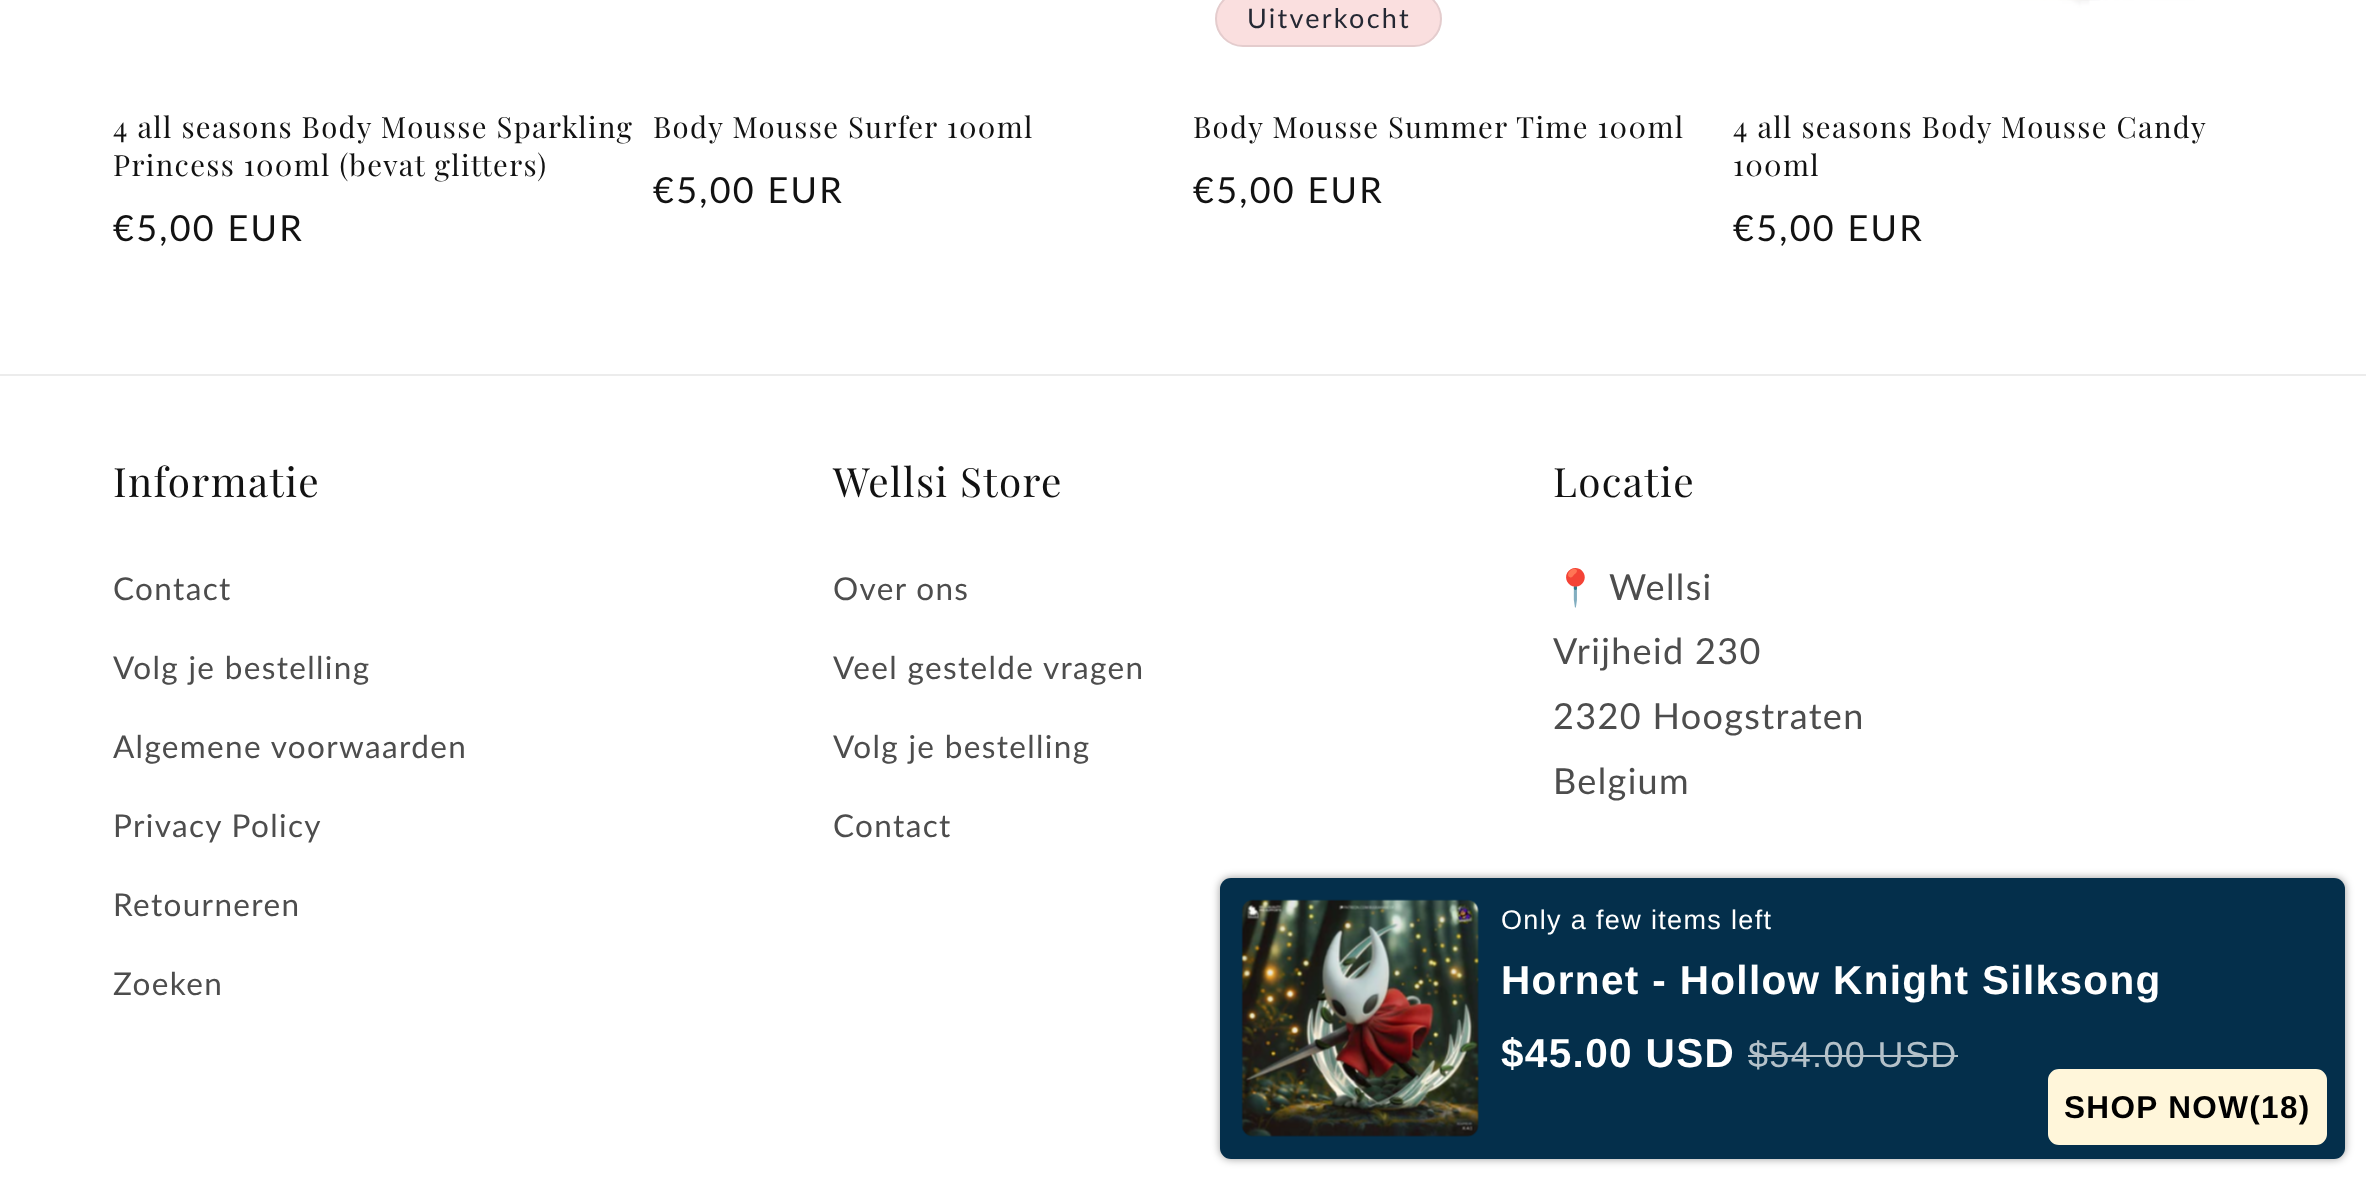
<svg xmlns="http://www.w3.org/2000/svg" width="2366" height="1180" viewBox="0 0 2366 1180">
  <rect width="100%" height="100%" fill="#fff"/>
  <rect x="1215" y="-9" width="227" height="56" rx="28" fill="#fadfdf"/>
  <rect x="1216" y="-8" width="225" height="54" rx="27" fill="none" stroke="#2428331a" stroke-width="2"/>
  <image x="1733" y="0" width="522" height="70" href="img/1.png"/>
  <path d="M0 374h2366v2H0z" fill="#ececec"/>
  <rect x="1220" y="878" width="1125" height="281" rx="11" fill="#00000066" filter="blur(4.5px)"/>
  <rect x="1220" y="878" width="1125" height="281" rx="11" fill="#042f4b"/>
  <image x="1241" y="899" width="238" height="238" href="img/2.png"/>
  <path d="M1748 1055h210v2H1748z" fill="#b4c1c9"/>
  <rect x="2049" y="1070" width="277" height="74" rx="10" fill="#fff6da" stroke="#fff6da" stroke-width="2"/>
  <g font-family="Playfair Display" font-size="29.25" letter-spacing="1.35" fill="#121212">
    <text x="113" y="138">4 all seasons Body Mousse Sparkling</text>
    <text x="113" y="176">Princess 100ml (bevat glitters)</text>
  </g>
  <text x="113" y="241" font-family="Lato" font-size="36" letter-spacing="2.25" fill="#121212">€5,00 EUR</text>
  <text x="653" y="138" font-family="Playfair Display" font-size="29.25" letter-spacing="1.35" fill="#121212">Body Mousse Surfer 100ml</text>
  <text x="653" y="203" font-family="Lato" font-size="36" letter-spacing="2.25" fill="#121212">€5,00 EUR</text>
  <text x="1247" y="28" font-family="Lato" font-size="27" letter-spacing="2.25" fill="#242833">Uitverkocht</text>
  <text x="1193" y="138" font-family="Playfair Display" font-size="29.25" letter-spacing="1.35" fill="#121212">Body Mousse Summer Time 100ml</text>
  <text x="1193" y="203" font-family="Lato" font-size="36" letter-spacing="2.25" fill="#121212">€5,00 EUR</text>
  <g font-family="Playfair Display" font-size="29.25" letter-spacing="1.35" fill="#121212">
    <text x="1733" y="138">4 all seasons Body Mousse Candy</text>
    <text x="1733" y="176">100ml</text>
  </g>
  <text x="1733" y="241" font-family="Lato" font-size="36" letter-spacing="2.25" fill="#121212">€5,00 EUR</text>
  <text x="113" y="497" font-family="Playfair Display" font-size="40.5" letter-spacing="1.35" fill="#121212">Informatie</text>
  <g font-family="Lato" font-size="31.5" letter-spacing="1.35" fill="#4d4d4d">
    <text x="113" y="600">Contact</text>
    <text x="113" y="679">Volg je bestelling</text>
    <text x="113" y="758">Algemene voorwaarden</text>
    <text x="113" y="837">Privacy Policy</text>
    <text x="113" y="916">Retourneren</text>
    <text x="113" y="995">Zoeken</text>
  </g>
  <text x="833" y="497" font-family="Playfair Display" font-size="40.5" letter-spacing="1.35" fill="#121212">Wellsi Store</text>
  <g font-family="Lato" font-size="31.5" letter-spacing="1.35" fill="#4d4d4d">
    <text x="833" y="600">Over ons</text>
    <text x="833" y="679">Veel gestelde vragen</text>
    <text x="833" y="758">Volg je bestelling</text>
    <text x="833" y="837">Contact</text>
  </g>
  <text x="1553" y="497" font-family="Playfair Display" font-size="40.5" letter-spacing="1.35" fill="#121212">Locatie</text>
  <text x="1553" y="600" font-family="Noto Color Emoji" font-size="36" letter-spacing="1.35" fill="#4d4d4d">📍</text>
  <g font-family="Lato" font-size="36" letter-spacing="1.35" fill="#4d4d4d">
    <text x="1609" y="600">Wellsi</text>
    <text x="1553" y="664">Vrijheid 230</text>
    <text x="1553" y="729">2320 Hoogstraten</text>
    <text x="1553" y="794">Belgium</text>
  </g>
  <text x="1501" y="929" font-family="Liberation Sans" font-size="27" letter-spacing="1.35" fill="#fff">Only a few items left</text>
  <g font-family="Liberation Sans" font-size="40.5" font-weight="bold" letter-spacing="1.35" fill="#fff">
    <text x="1501" y="994">Hornet - Hollow Knight Silksong</text>
    <text x="1501" y="1067">$45.00 USD</text>
  </g>
  <text x="1748" y="1067" font-family="Liberation Sans" font-size="36" letter-spacing="1.35" fill="#b4c1c9">$54.00 USD</text>
  <text x="2064" y="1118" font-family="Liberation Sans" font-size="31.5" font-weight="bold" letter-spacing="1.35" fill="#000">SHOP NOW(18)</text>
</svg>
